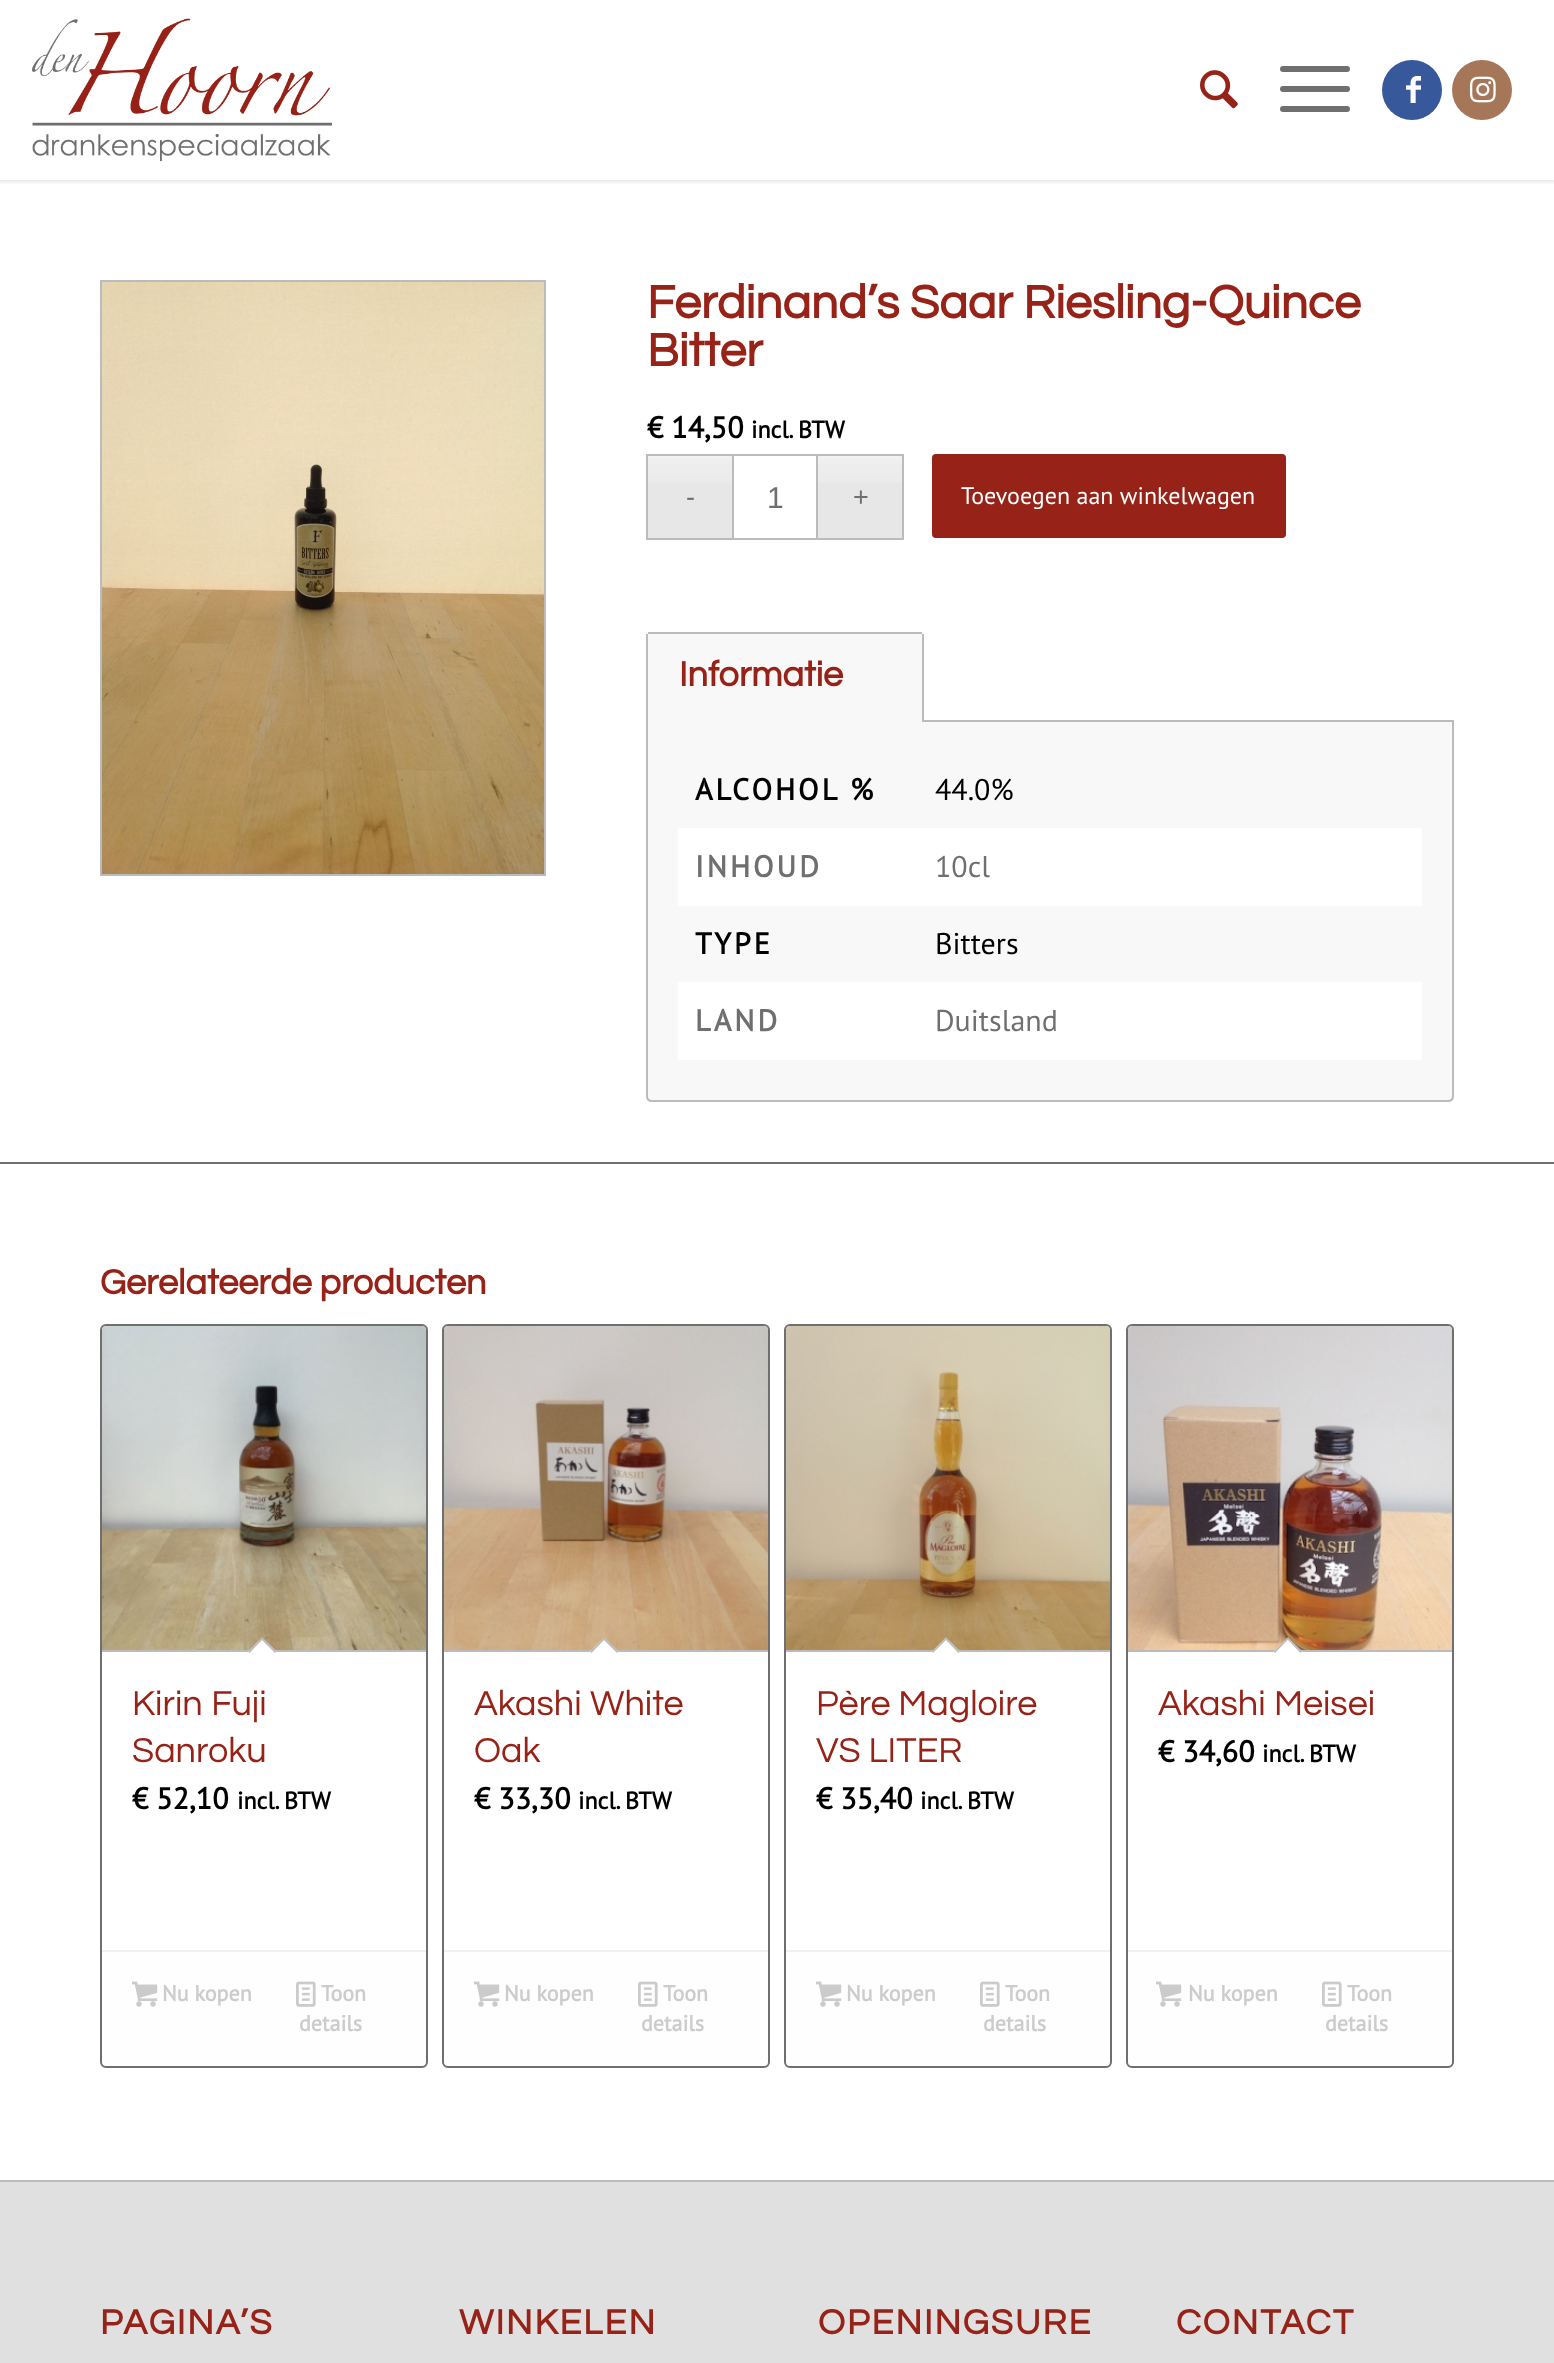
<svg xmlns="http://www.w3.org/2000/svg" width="1554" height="2363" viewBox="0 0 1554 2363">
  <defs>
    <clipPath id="clip1"><path d="M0 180h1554v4H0z"/></clipPath>
  </defs>
  <rect width="100%" height="100%" fill="#fff"/>
  <g clip-path="url(#clip1)">
    <path d="M-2 -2h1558v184H-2z" fill="#0000001a" filter="blur(2px)"/>
  </g>
  <image x="32" y="18" width="300" height="144" href="img/1.png"/>
  <image x="1200" y="70" width="38" height="39" href="img/2.png"/>
  <rect x="1280" y="86" width="70" height="6" rx="3" fill="#6e6f6e"/>
  <rect x="1280" y="66" width="70" height="6" rx="3" fill="#6e6f6e"/>
  <rect x="1280" y="106" width="70" height="6" rx="3" fill="#6e6f6e"/>
  <circle cx="1412" cy="90" r="30" fill="#37589b"/>
  <image x="1406" y="76" width="15" height="27" href="img/3.png"/>
  <circle cx="1482" cy="90" r="30" fill="#a67658"/>
  <image x="1470" y="76" width="26" height="27" href="img/4.png"/>
  <path d="M101 281h444v594H101z" fill="none" stroke="#babbbd" stroke-width="2"/>
  <image x="102" y="282" width="442" height="592" href="img/5.png"/>
  <path d="M648 456h84v82H648z" fill="#e7e7e7"/>
  <image x="648" y="456" width="84" height="27" href="img/6.png"/>
  <path d="M818 456h84v82H818z" fill="#e7e7e7"/>
  <image x="818" y="456" width="84" height="27" href="img/6.png"/>
  <path d="M646 454h86v2H646z" fill="#babbbd"/>
  <path d="M646 538h86v2H646z" fill="#babbbd"/>
  <path d="M646 454h2v86H646z" fill="#babbbd"/>
  <path d="M733 455h84v84H733z" fill="none" stroke="#babbbd" stroke-width="2"/>
  <path d="M818 454h86v2H818z" fill="#babbbd"/>
  <path d="M902 454h2v86H902z" fill="#babbbd"/>
  <path d="M818 538h86v2H818z" fill="#babbbd"/>
  <rect x="932" y="454" width="354" height="84" rx="4" fill="#972217"/>
  <path d="M647 721H1453V1096C1453 1099 1451 1101 1448 1101H652C649 1101 647 1099 647 1096Z" fill="#f8f8f8" stroke="#babbbd" stroke-width="2"/>
  <path d="M646 632h278v90H646z" fill="#f8f8f8"/>
  <path d="M648 632h274v2H648z" fill="#babbbd"/>
  <path d="M922 634h2v88H922z" fill="#babbbd"/>
  <path d="M646 634h2v88H646z" fill="#babbbd"/>
  <path d="M678 828h744v78H678z" fill="#fff"/>
  <path d="M678 982h744v78H678z" fill="#fff"/>
  <path d="M0 1162h1554v2H0z" fill="#6e6f6e"/>
  <rect x="101" y="1325" width="326" height="742" rx="5" fill="none" stroke="#6e6f6e" stroke-width="2"/>
  <image x="102" y="1326" width="324" height="324" href="img/7.png"/>
  <path d="M102 1650h324v2H102z" fill="#babbbd"/>
  <path d="M262 1637.5L276.5 1651.5L262 1665.5L248 1651.5Z" fill="#fff"/>
  <path d="M262 1637.5L276.5 1651.5L275 1653L260.5 1638.5Z" fill="#babbbd"/>
  <path d="M262 1637.5L263.5 1638.5L249.5 1653L248 1651.5Z" fill="#babbbd"/>
  <path d="M102 1950H426V2062C426 2064 424 2066 422 2066H106C104 2066 102 2064 102 2062Z" fill="#f8f8f833"/>
  <path d="M102 1950h324v2H102z" fill="#f1f1f2"/>
  <image x="132" y="1981" width="26" height="26" href="img/8.png"/>
  <image x="296" y="1981" width="20" height="26" href="img/9.png"/>
  <rect x="443" y="1325" width="326" height="742" rx="5" fill="none" stroke="#6e6f6e" stroke-width="2"/>
  <image x="444" y="1326" width="324" height="324" href="img/10.png"/>
  <path d="M444 1650h324v2H444z" fill="#babbbd"/>
  <path d="M604 1637.5L618 1651.5L604 1665.5L590 1651.5Z" fill="#fff"/>
  <path d="M604 1637.5L618 1651.5L617 1653L602.5 1638.5Z" fill="#babbbd"/>
  <path d="M604 1637.5L605.5 1638.5L591.5 1653L590 1651.5Z" fill="#babbbd"/>
  <path d="M444 1950H768V2062C768 2064 766 2066 764 2066H448C446 2066 444 2064 444 2062Z" fill="#f8f8f833"/>
  <path d="M444 1950h324v2H444z" fill="#f1f1f2"/>
  <image x="474" y="1981" width="26" height="26" href="img/8.png"/>
  <image x="638" y="1981" width="20" height="26" href="img/9.png"/>
  <rect x="785" y="1325" width="326" height="742" rx="5" fill="none" stroke="#6e6f6e" stroke-width="2"/>
  <image x="786" y="1326" width="324" height="324" href="img/11.png"/>
  <path d="M786 1650h324v2H786z" fill="#babbbd"/>
  <path d="M946 1637.5L960 1651.5L946 1665.5L932 1651.5Z" fill="#fff"/>
  <path d="M946 1637.5L960 1651.5L958.5 1653L944.5 1638.5Z" fill="#babbbd"/>
  <path d="M946 1637.5L947.5 1638.5L933 1653L932 1651.5Z" fill="#babbbd"/>
  <path d="M786 1950H1110V2062C1110 2064 1108 2066 1106 2066H790C788 2066 786 2064 786 2062Z" fill="#f8f8f833"/>
  <path d="M786 1950h324v2H786z" fill="#f1f1f2"/>
  <image x="816" y="1981" width="26" height="26" href="img/8.png"/>
  <image x="980" y="1981" width="20" height="26" href="img/9.png"/>
  <rect x="1127" y="1325" width="326" height="742" rx="5" fill="none" stroke="#6e6f6e" stroke-width="2"/>
  <image x="1128" y="1326" width="324" height="324" href="img/12.png"/>
  <path d="M1128 1650h324v2H1128z" fill="#babbbd"/>
  <path d="M1288 1637.5L1302 1651.5L1288 1665.5L1273.5 1651.5Z" fill="#fff"/>
  <path d="M1288 1637.5L1302 1651.5L1300.5 1653L1286.5 1638.5Z" fill="#babbbd"/>
  <path d="M1288 1637.5L1289 1638.5L1275 1653L1273.5 1651.5Z" fill="#babbbd"/>
  <path d="M1128 1950H1452V2062C1452 2064 1450 2066 1448 2066H1132C1130 2066 1128 2064 1128 2062Z" fill="#f8f8f833"/>
  <path d="M1128 1950h324v2H1128z" fill="#f1f1f2"/>
  <image x="1156" y="1981" width="26" height="26" href="img/8.png"/>
  <image x="1322" y="1981" width="20" height="26" href="img/9.png"/>
  <path d="M0 2182h1554v181H0z" fill="#e0e0e0"/>
  <path d="M0 2180h1554v2H0z" fill="#babbbd"/>
  <g font-family="Questrial" font-size="48" font-weight="bold" fill="#972217">
    <text x="647" y="318">Ferdinand’s Saar Riesling-Quince</text>
    <text x="647" y="366">Bitter</text>
  </g>
  <text x="647" y="438" font-family="PT Sans" font-size="30" font-weight="bold" fill="#000">€ 14,50</text>
  <text x="751" y="438" font-family="PT Sans" font-size="24" font-weight="bold" fill="#000">incl. BTW</text>
  <text x="686" y="506" font-family="Liberation Sans" font-size="27" fill="#6e6f6e">-</text>
  <text x="767" y="508" font-family="Liberation Sans" font-size="30" fill="#6e6f6e">1</text>
  <text x="853" y="506" font-family="Liberation Sans" font-size="27" fill="#6e6f6e">+</text>
  <text x="961" y="504" font-family="PT Sans" font-size="24" fill="#fff">Toevoegen aan winkelwagen</text>
  <text x="679" y="686" font-family="Questrial" font-size="36" font-weight="bold" fill="#972217">Informatie</text>
  <text x="695" y="800" font-family="PT Sans" font-size="30" font-weight="bold" letter-spacing="3" fill="#000">ALCOHOL %</text>
  <text x="935" y="800" font-family="PT Sans" font-size="30" fill="#000">44.0%</text>
  <text x="695" y="877" font-family="PT Sans" font-size="30" font-weight="bold" letter-spacing="3" fill="#6e6f6e">INHOUD</text>
  <text x="935" y="877" font-family="PT Sans" font-size="30" fill="#6e6f6e">10cl</text>
  <text x="695" y="954" font-family="PT Sans" font-size="30" font-weight="bold" letter-spacing="3" fill="#000">TYPE</text>
  <text x="935" y="954" font-family="PT Sans" font-size="30" fill="#000">Bitters</text>
  <text x="695" y="1031" font-family="PT Sans" font-size="30" font-weight="bold" letter-spacing="3" fill="#6e6f6e">LAND</text>
  <text x="935" y="1031" font-family="PT Sans" font-size="30" fill="#6e6f6e">Duitsland</text>
  <text x="100" y="1294" font-family="Questrial" font-size="36" font-weight="bold" fill="#972217">Gerelateerde producten</text>
  <g font-family="Questrial" font-size="36" fill="#972217">
    <text x="132" y="1715" word-spacing="1">Kirin Fuji</text>
    <text x="132" y="1762">Sanroku</text>
  </g>
  <text x="132" y="1809" font-family="PT Sans" font-size="30" font-weight="bold" fill="#000">€ 52,10</text>
  <text x="237" y="1809" font-family="PT Sans" font-size="24" font-weight="bold" fill="#000">incl. BTW</text>
  <g font-family="PT Sans" font-size="22" font-weight="bold" fill="#ccc">
    <text x="162" y="2001">Nu kopen</text>
    <text x="321" y="2001">Toon</text>
    <text x="299" y="2031">details</text>
  </g>
  <g font-family="Questrial" font-size="36" fill="#972217">
    <text x="474" y="1715">Akashi White</text>
    <text x="474" y="1762">Oak</text>
  </g>
  <text x="474" y="1809" font-family="PT Sans" font-size="30" font-weight="bold" fill="#000">€ 33,30</text>
  <text x="578" y="1809" font-family="PT Sans" font-size="24" font-weight="bold" fill="#000">incl. BTW</text>
  <g font-family="PT Sans" font-size="22" font-weight="bold" fill="#ccc">
    <text x="504" y="2001">Nu kopen</text>
    <text x="663" y="2001">Toon</text>
    <text x="641" y="2031">details</text>
  </g>
  <g font-family="Questrial" font-size="36" fill="#972217">
    <text x="816" y="1715">Père Magloire</text>
    <text x="816" y="1762">VS LITER</text>
  </g>
  <text x="816" y="1809" font-family="PT Sans" font-size="30" font-weight="bold" fill="#000">€ 35,40</text>
  <text x="920" y="1809" font-family="PT Sans" font-size="24" font-weight="bold" fill="#000">incl. BTW</text>
  <g font-family="PT Sans" font-size="22" font-weight="bold" fill="#ccc">
    <text x="846" y="2001">Nu kopen</text>
    <text x="1005" y="2001">Toon</text>
    <text x="983" y="2031">details</text>
  </g>
  <text x="1158" y="1715" font-family="Questrial" font-size="36" fill="#972217">Akashi Meisei</text>
  <text x="1158" y="1762" font-family="PT Sans" font-size="30" font-weight="bold" fill="#000">€ 34,60</text>
  <text x="1262" y="1762" font-family="PT Sans" font-size="24" font-weight="bold" fill="#000">incl. BTW</text>
  <g font-family="PT Sans" font-size="22" font-weight="bold" fill="#ccc">
    <text x="1188" y="2001">Nu kopen</text>
    <text x="1347" y="2001">Toon</text>
    <text x="1325" y="2031">details</text>
  </g>
  <g font-family="Questrial" font-size="36" font-weight="bold" letter-spacing="2" fill="#972217">
    <text x="100" y="2334">PAGINA’S</text>
    <text x="459" y="2334">WINKELEN</text>
    <text x="818" y="2334">OPENINGSURE</text>
    <text x="1176" y="2334">CONTACT</text>
  </g>
</svg>
